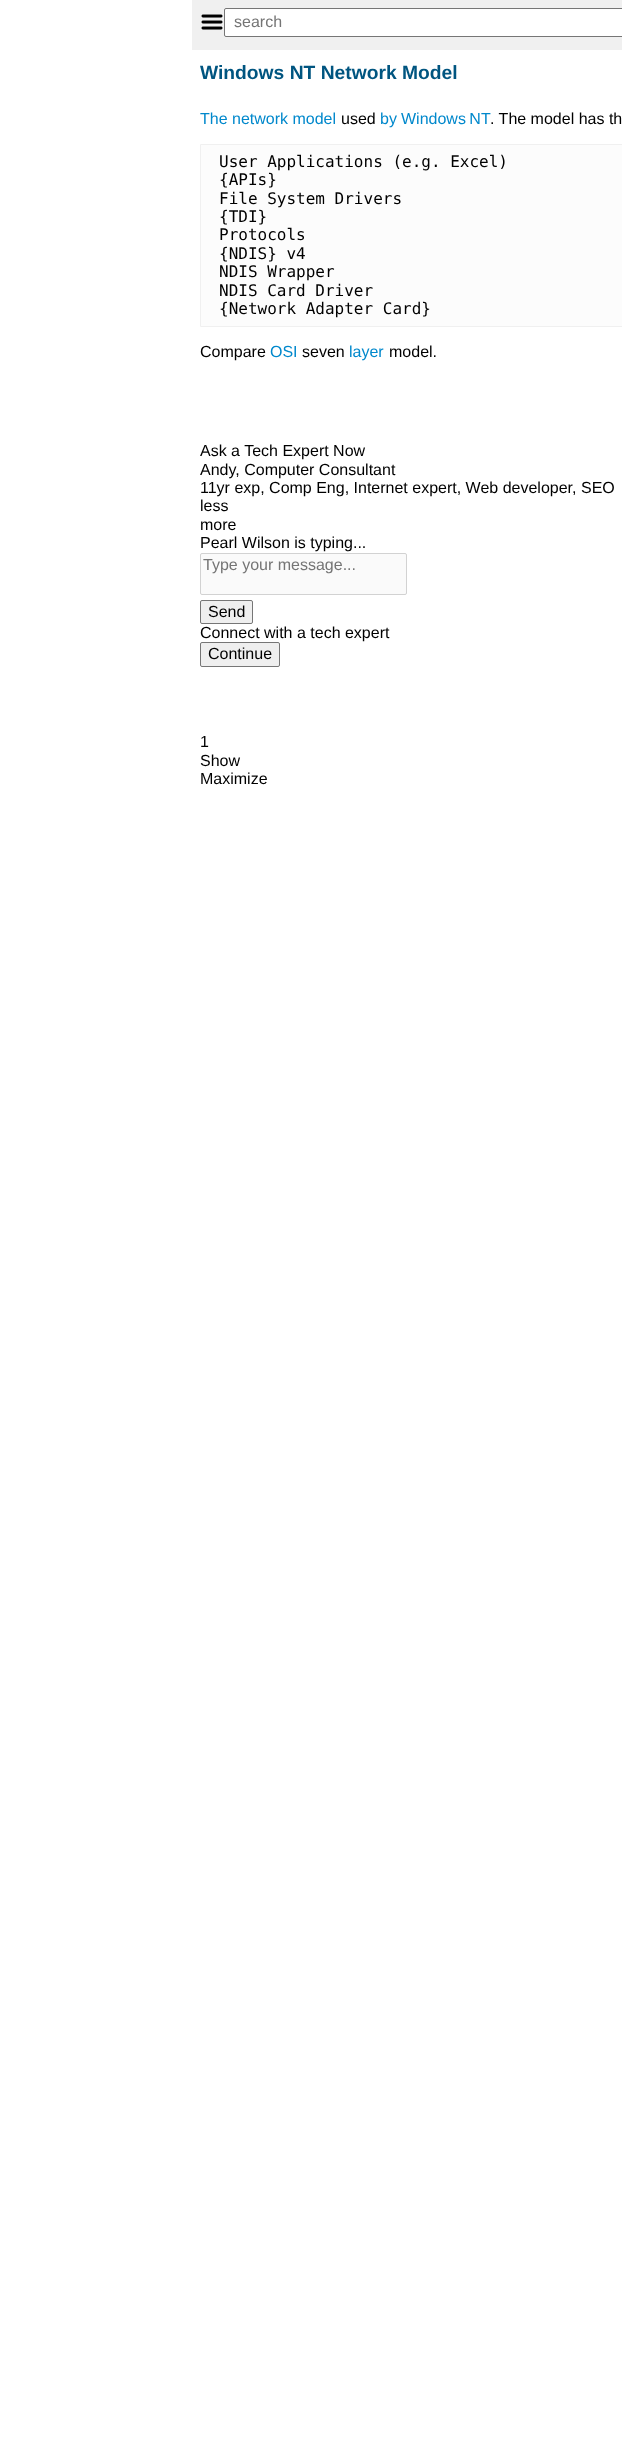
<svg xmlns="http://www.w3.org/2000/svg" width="622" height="2443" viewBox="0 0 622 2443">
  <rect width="100%" height="100%" fill="#fff"/>
  <path d="M192 0h430v50H192z" fill="#f0f0f0"/>
  <image x="201" y="14" width="22" height="16" href="img/1.png"/>
  <rect x="224.5" y="8.5" width="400" height="28" rx="1.5" fill="#fff" stroke="#767676"/>
  <path d="M200.5 144.5h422v182H200.5z" fill="#fcfcfc" stroke="#f0f0f0"/>
  <rect x="200.5" y="553.5" width="206" height="41" rx="1.5" fill="#fafafa" stroke="#d2d2d2"/>
  <rect x="200.5" y="600.5" width="52" height="23" rx="1.5" fill="#efefef" stroke="#767676"/>
  <rect x="200.5" y="642.5" width="79" height="24" rx="1.5" fill="#efefef" stroke="#767676"/>
  <text x="234" y="27" font-family="Liberation Sans" font-size="16" fill="#757575">search</text>
  <text x="200" y="79" font-family="Liberation Sans" font-size="19.25" font-weight="bold" fill="#005580">Windows NT Network Model</text>
  <text x="200" y="124" font-family="Liberation Sans" font-size="16" fill="#08c">The network model</text>
  <text x="341" y="124" font-family="Liberation Sans" font-size="16" fill="#000">used</text>
  <g font-family="Liberation Sans" font-size="16" fill="#08c">
    <text x="380" y="124">by</text>
    <text x="401" y="124" word-spacing="-1">Windows NT</text>
  </g>
  <text x="490" y="124" font-family="Liberation Sans" font-size="16" fill="#000">. The model has th</text>
  <g font-family="DejaVu Sans Mono" font-size="16" fill="#000">
    <text x="219" y="167">User Applications (e.g. Excel)</text>
    <text x="219" y="185">{APIs}</text>
    <text x="219" y="204">File System Drivers</text>
    <text x="219" y="222">{TDI}</text>
    <text x="219" y="240">Protocols</text>
    <text x="219" y="259">{NDIS} v4</text>
    <text x="219" y="277">NDIS Wrapper</text>
    <text x="219" y="296">NDIS Card Driver</text>
    <text x="219" y="314">{Network Adapter Card}</text>
  </g>
  <text x="200" y="357" font-family="Liberation Sans" font-size="16" fill="#000">Compare</text>
  <text x="270" y="357" font-family="Liberation Sans" font-size="16" fill="#08c">OSI</text>
  <text x="302" y="357" font-family="Liberation Sans" font-size="16" fill="#000">seven</text>
  <text x="349" y="357" font-family="Liberation Sans" font-size="16" fill="#08c">layer</text>
  <g font-family="Liberation Sans" font-size="16" fill="#000">
    <text x="389" y="357">model.</text>
    <text x="200" y="456">Ask a Tech Expert Now</text>
    <text x="200" y="475">Andy, Computer Consultant</text>
    <text x="200" y="493">11yr exp, Comp Eng, Internet expert, Web developer, SEO</text>
    <text x="200" y="511">less</text>
    <text x="200" y="530">more</text>
    <text x="200" y="548">Pearl Wilson is typing...</text>
  </g>
  <text x="203" y="570" font-family="Liberation Sans" font-size="16" fill="#757575">Type your message...</text>
  <g font-family="Liberation Sans" font-size="16" fill="#000">
    <text x="208" y="617">Send</text>
    <text x="200" y="638">Connect with a tech expert</text>
    <text x="208" y="659">Continue</text>
    <text x="200" y="747">1</text>
    <text x="200" y="766">Show</text>
    <text x="200" y="784">Maximize</text>
  </g>
</svg>
